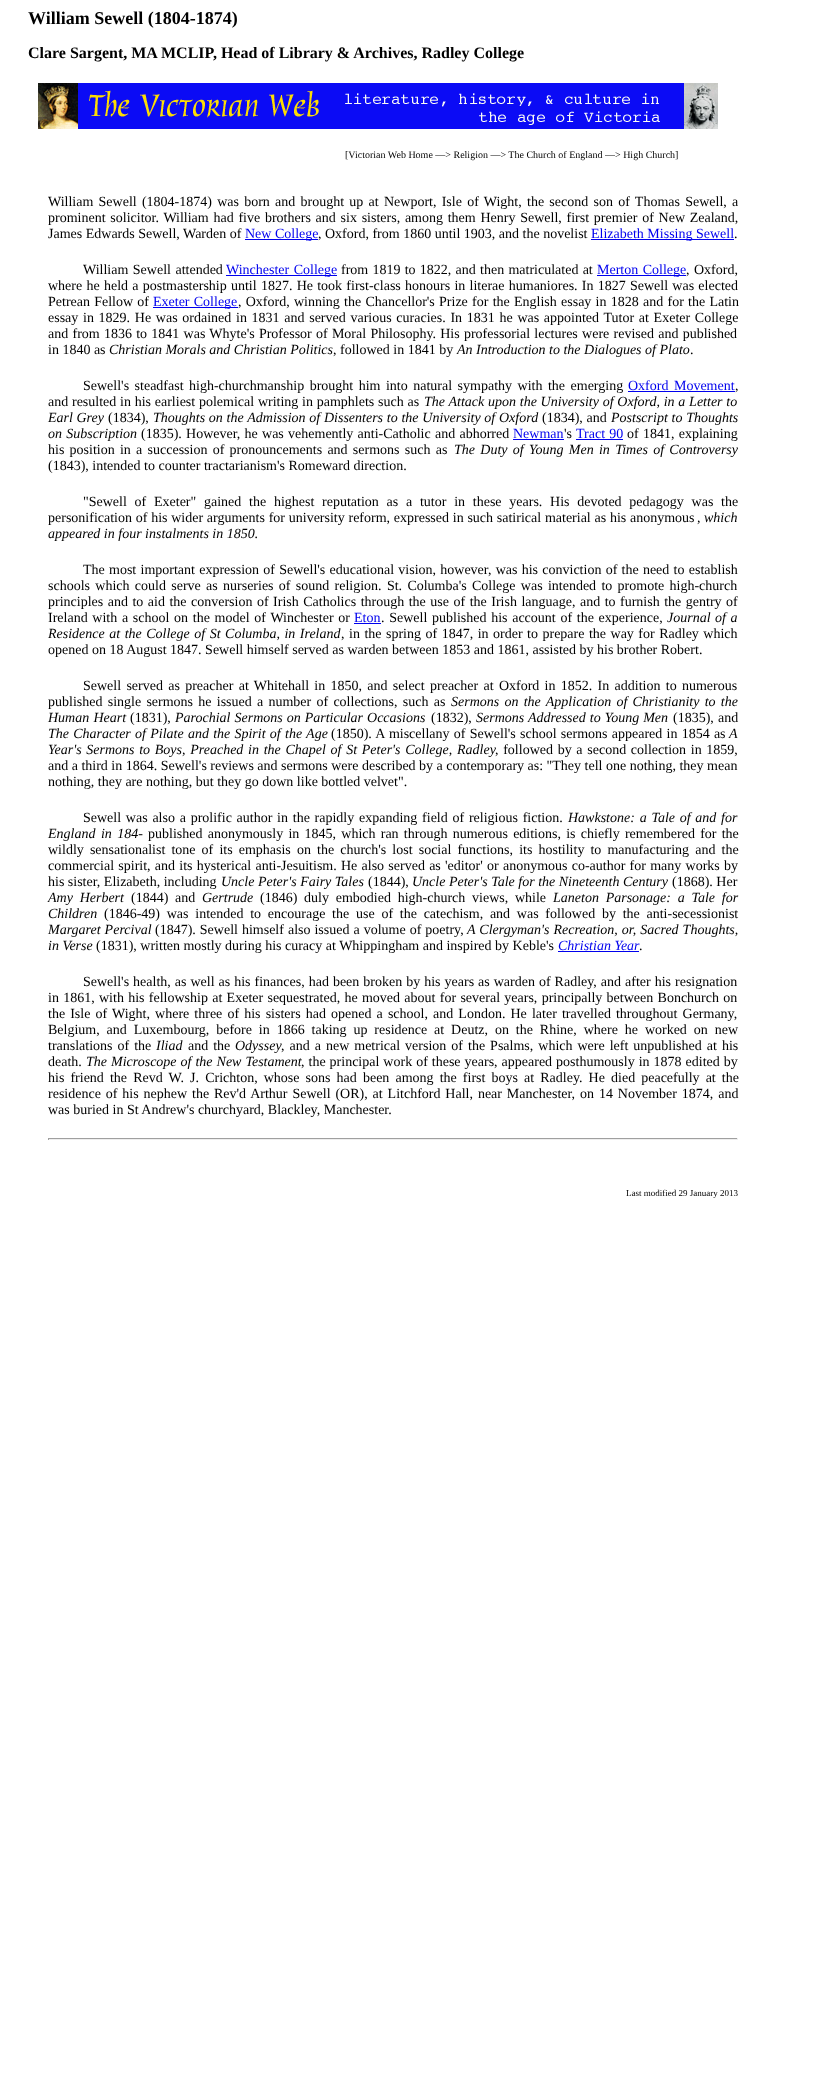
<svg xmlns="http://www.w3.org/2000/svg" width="819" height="2086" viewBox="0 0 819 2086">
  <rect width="100%" height="100%" fill="#fff"/>
  <image x="38" y="83" width="680" height="46" href="img/1.png"/>
  <path d="M245 239h73v1H245z" fill="#00e"/>
  <path d="M591 239h143v1H591z" fill="#00e"/>
  <path d="M226 275h111v1H226z" fill="#00e"/>
  <path d="M597 275h89v1H597z" fill="#00e"/>
  <path d="M153 307h85v1H153z" fill="#00e"/>
  <path d="M628 391h107v1H628z" fill="#00e"/>
  <path d="M513 439h51v1H513z" fill="#00e"/>
  <path d="M576 439h47v1H576z" fill="#00e"/>
  <path d="M354 623h27v1H354z" fill="#00e"/>
  <path d="M558 951h81v1H558z" fill="#00e"/>
  <path d="M48 1138h690v1H48z" fill="#9f9f9f"/>
  <path d="M737 1138h1v2H737z" fill="#eee"/>
  <path d="M48 1139h690v1H48z" fill="#eee"/>
  <path d="M48 1138h1v2H48z" fill="#9f9f9f"/>
  <text x="28" y="24" font-family="Liberation Serif" font-size="18" font-weight="bold" fill="#000">William Sewell (1804-1874)</text>
  <text x="28" y="58" font-family="Liberation Serif" font-size="16" font-weight="bold" fill="#000">Clare Sargent, MA MCLIP, Head of Library &amp; Archives, Radley College</text>
  <text x="345" y="158" font-family="Liberation Serif" font-size="10" fill="#000">[Victorian Web Home —&gt; Religion —&gt; The Church of England —&gt; High Church]</text>
  <g font-family="Liberation Serif" font-size="14" fill="#000">
    <text x="48" y="206" word-spacing="1.75">William Sewell (1804-1874) was born and brought up at Newport, Isle of Wight, the second son of Thomas Sewell, a</text>
    <text x="48" y="222" word-spacing="1.25">prominent solicitor. William had five brothers and six sisters, among them Henry Sewell, first premier of New Zealand,</text>
    <text x="48" y="238">James Edwards Sewell, Warden of</text>
  </g>
  <text x="245" y="238" font-family="Liberation Serif" font-size="14" fill="#00e">New College</text>
  <text x="318" y="238" font-family="Liberation Serif" font-size="14" fill="#000">, Oxford, from 1860 until 1903, and the novelist</text>
  <text x="591" y="238" font-family="Liberation Serif" font-size="14" fill="#00e">Elizabeth Missing Sewell</text>
  <g font-family="Liberation Serif" font-size="14" fill="#000">
    <text x="734" y="238">.</text>
    <text x="83" y="274" word-spacing="1">William Sewell attended</text>
  </g>
  <text x="226" y="274" word-spacing="1" font-family="Liberation Serif" font-size="14" fill="#00e">Winchester College</text>
  <text x="341" y="274" word-spacing="0.75" font-family="Liberation Serif" font-size="14" fill="#000">from 1819 to 1822, and then matriculated at</text>
  <text x="597" y="274" word-spacing="1" font-family="Liberation Serif" font-size="14" fill="#00e">Merton College</text>
  <g font-family="Liberation Serif" font-size="14" fill="#000">
    <text x="686" y="274" word-spacing="1">, Oxford,</text>
    <text x="48" y="290" word-spacing="0.75">where he held a postmastership until 1827. He took first-class honours in literae humaniores. In 1827 Sewell was elected</text>
    <text x="48" y="306" word-spacing="0.75">Petrean Fellow of</text>
  </g>
  <text x="153" y="306" word-spacing="0.75" font-family="Liberation Serif" font-size="14" fill="#00e">Exeter College</text>
  <g font-family="Liberation Serif" font-size="14" fill="#000">
    <text x="238" y="306" word-spacing="0.75">, Oxford, winning the Chancellor's Prize for the English essay in 1828 and for the Latin</text>
    <text x="48" y="322" word-spacing="1.2">essay in 1829. He was ordained in 1831 and served various curacies. In 1831 he was appointed Tutor at Exeter College</text>
    <text x="48" y="338" word-spacing="0.75">and from 1836 to 1841 was Whyte's Professor of Moral Philosophy. His professorial lectures were revised and published</text>
    <text x="48" y="354">in 1840 as</text>
  </g>
  <text x="109" y="354" font-family="Liberation Serif" font-size="14" font-style="italic" fill="#000">Christian Morals and Christian Politics</text>
  <text x="333" y="354" font-family="Liberation Serif" font-size="14" fill="#000">, followed in 1841 by</text>
  <text x="457" y="354" font-family="Liberation Serif" font-size="14" font-style="italic" fill="#000">An Introduction to the Dialogues of Plato</text>
  <g font-family="Liberation Serif" font-size="14" fill="#000">
    <text x="690" y="354">.</text>
    <text x="83" y="390" word-spacing="2">Sewell's steadfast high-churchmanship brought him into natural sympathy with the emerging</text>
  </g>
  <text x="628" y="390" word-spacing="2" font-family="Liberation Serif" font-size="14" fill="#00e">Oxford Movement</text>
  <g font-family="Liberation Serif" font-size="14" fill="#000">
    <text x="735" y="390">,</text>
    <text x="48" y="406" word-spacing="0.25">and resulted in his earliest polemical writing in pamphlets such as</text>
  </g>
  <g font-family="Liberation Serif" font-size="14" font-style="italic" fill="#000">
    <text x="424" y="406" word-spacing="0.25">The Attack upon the University of Oxford, in a Letter to</text>
    <text x="48" y="422">Earl Grey</text>
  </g>
  <text x="108" y="422" font-family="Liberation Serif" font-size="14" fill="#000">(1834),</text>
  <text x="153" y="422" word-spacing="0.25" font-family="Liberation Serif" font-size="14" font-style="italic" fill="#000">Thoughts on the Admission of Dissenters to the University of Oxford</text>
  <text x="542" y="422" word-spacing="0.25" font-family="Liberation Serif" font-size="14" fill="#000">(1834), and</text>
  <g font-family="Liberation Serif" font-size="14" font-style="italic" fill="#000">
    <text x="611" y="422" word-spacing="0.25">Postscript to Thoughts</text>
    <text x="48" y="438" word-spacing="0.75">on Subscription</text>
  </g>
  <text x="141" y="438" word-spacing="0.75" font-family="Liberation Serif" font-size="14" fill="#000">(1835). However, he was vehemently anti-Catholic and abhorred</text>
  <text x="513" y="438" font-family="Liberation Serif" font-size="14" fill="#00e">Newman</text>
  <text x="564" y="438" font-family="Liberation Serif" font-size="14" fill="#000">'s</text>
  <text x="576" y="438" word-spacing="0.75" font-family="Liberation Serif" font-size="14" fill="#00e">Tract 90</text>
  <g font-family="Liberation Serif" font-size="14" fill="#000">
    <text x="627" y="438" word-spacing="0.75">of 1841, explaining</text>
    <text x="48" y="454" word-spacing="1.75">his position in a succession of pronouncements and sermons such as</text>
  </g>
  <text x="454" y="454" word-spacing="1.8" font-family="Liberation Serif" font-size="14" font-style="italic" fill="#000">The Duty of Young Men in Times of Controversy</text>
  <g font-family="Liberation Serif" font-size="14" fill="#000">
    <text x="48" y="470">(1843), intended to counter tractarianism's Romeward direction.</text>
    <text x="83" y="506" word-spacing="4.25">"Sewell of Exeter" gained the highest reputation as a tutor in these years. His devoted pedagogy was the</text>
    <text x="48" y="522" word-spacing="0.25">personification of his wider arguments for university reform, expressed in such satirical material as his anonymous</text>
  </g>
  <g font-family="Liberation Serif" font-size="14" font-style="italic" fill="#000">
    <text x="697" y="522">, which</text>
    <text x="48" y="538">appeared in four instalments in 1850.</text>
  </g>
  <g font-family="Liberation Serif" font-size="14" fill="#000">
    <text x="83" y="574" word-spacing="0.75">The most important expression of Sewell's educational vision, however, was his conviction of the need to establish</text>
    <text x="48" y="590" word-spacing="1.8">schools which could serve as nurseries of sound religion. St. Columba's College was intended to promote high-church</text>
    <text x="48" y="606" word-spacing="1">principles and to aid the conversion of Irish Catholics through the use of the Irish language, and to furnish the gentry of</text>
    <text x="48" y="622" word-spacing="1.2">Ireland with a school on the model of Winchester or</text>
  </g>
  <text x="354" y="622" font-family="Liberation Serif" font-size="14" fill="#00e">Eton</text>
  <text x="381" y="622" word-spacing="1.2" font-family="Liberation Serif" font-size="14" fill="#000">. Sewell published his account of the experience,</text>
  <g font-family="Liberation Serif" font-size="14" font-style="italic" fill="#000">
    <text x="667" y="622" word-spacing="1">Journal of a</text>
    <text x="48" y="638" word-spacing="1">Residence at the College of St Columba, in Ireland</text>
  </g>
  <g font-family="Liberation Serif" font-size="14" fill="#000">
    <text x="341" y="638" word-spacing="1">, in the spring of 1847, in order to prepare the way for Radley which</text>
    <text x="48" y="654">opened on 18 August 1847. Sewell himself served as warden between 1853 and 1861, assisted by his brother Robert.</text>
    <text x="83" y="690" word-spacing="1.8">Sewell served as preacher at Whitehall in 1850, and select preacher at Oxford in 1852. In addition to numerous</text>
    <text x="48" y="706" word-spacing="1.75">published single sermons he issued a number of collections, such as</text>
  </g>
  <g font-family="Liberation Serif" font-size="14" font-style="italic" fill="#000">
    <text x="451" y="706" word-spacing="1.75">Sermons on the Application of Christianity to the</text>
    <text x="48" y="722" word-spacing="0.75">Human Heart</text>
  </g>
  <text x="130" y="722" font-family="Liberation Serif" font-size="14" fill="#000">(1831),</text>
  <text x="175" y="722" word-spacing="0.5" font-family="Liberation Serif" font-size="14" font-style="italic" fill="#000">Parochial Sermons on Particular Occasions</text>
  <text x="431" y="722" font-family="Liberation Serif" font-size="14" fill="#000">(1832),</text>
  <text x="476" y="722" word-spacing="0.5" font-family="Liberation Serif" font-size="14" font-style="italic" fill="#000">Sermons Addressed to Young Men</text>
  <text x="673" y="722" word-spacing="0.75" font-family="Liberation Serif" font-size="14" fill="#000">(1835), and</text>
  <text x="48" y="738" word-spacing="0.75" font-family="Liberation Serif" font-size="14" font-style="italic" fill="#000">The Character of Pilate and the Spirit of the Age</text>
  <text x="331" y="738" word-spacing="0.75" font-family="Liberation Serif" font-size="14" fill="#000">(1850). A miscellany of Sewell's school sermons appeared in 1854 as</text>
  <g font-family="Liberation Serif" font-size="14" font-style="italic" fill="#000">
    <text x="729" y="738">A</text>
    <text x="48" y="754" word-spacing="1.2">Year's Sermons to Boys, Preached in the Chapel of St Peter's College, Radley</text>
  </g>
  <g font-family="Liberation Serif" font-size="14" fill="#000">
    <text x="495" y="754" word-spacing="1.2">, followed by a second collection in 1859,</text>
    <text x="48" y="770">and a third in 1864. Sewell's reviews and sermons were described by a contemporary as: "They tell one nothing, they mean</text>
    <text x="48" y="786">nothing, they are nothing, but they go down like bottled velvet".</text>
    <text x="83" y="822" word-spacing="1.25">Sewell was also a prolific author in the rapidly expanding field of religious fiction.</text>
  </g>
  <g font-family="Liberation Serif" font-size="14" font-style="italic" fill="#000">
    <text x="568" y="822" word-spacing="1.25">Hawkstone: a Tale of and for</text>
    <text x="48" y="838" word-spacing="2">England in 184-</text>
  </g>
  <g font-family="Liberation Serif" font-size="14" fill="#000">
    <text x="148" y="838" word-spacing="1.75">published anonymously in 1845, which ran through numerous editions, is chiefly remembered for the</text>
    <text x="48" y="854" word-spacing="2.6">wildly sensationalist tone of its emphasis on the church's lost social functions, its hostility to manufacturing and the</text>
    <text x="48" y="870" word-spacing="0.75">commercial spirit, and its hysterical anti-Jesuitism. He also served as 'editor' or anonymous co-author for many works by</text>
    <text x="48" y="886">his sister, Elizabeth, including</text>
  </g>
  <text x="221" y="886" font-family="Liberation Serif" font-size="14" font-style="italic" fill="#000">Uncle Peter's Fairy Tales</text>
  <text x="368" y="886" font-family="Liberation Serif" font-size="14" fill="#000">(1844),</text>
  <text x="412" y="886" font-family="Liberation Serif" font-size="14" font-style="italic" fill="#000">Uncle Peter's Tale for the Nineteenth Century</text>
  <text x="672" y="886" font-family="Liberation Serif" font-size="14" fill="#000">(1868). Her</text>
  <text x="48" y="902" word-spacing="3.25" font-family="Liberation Serif" font-size="14" font-style="italic" fill="#000">Amy Herbert</text>
  <text x="131" y="902" word-spacing="3.25" font-family="Liberation Serif" font-size="14" fill="#000">(1844) and</text>
  <text x="202" y="902" font-family="Liberation Serif" font-size="14" font-style="italic" fill="#000">Gertrude</text>
  <text x="260" y="902" word-spacing="3.25" font-family="Liberation Serif" font-size="14" fill="#000">(1846) duly embodied high-church views, while</text>
  <g font-family="Liberation Serif" font-size="14" font-style="italic" fill="#000">
    <text x="553" y="902" word-spacing="3.25">Laneton Parsonage: a Tale for</text>
    <text x="48" y="918">Children</text>
  </g>
  <text x="104" y="918" word-spacing="3.25" font-family="Liberation Serif" font-size="14" fill="#000">(1846-49) was intended to encourage the use of the catechism, and was followed by the anti-secessionist</text>
  <text x="48" y="934" word-spacing="0.5" font-family="Liberation Serif" font-size="14" font-style="italic" fill="#000">Margaret Percival</text>
  <text x="155" y="934" word-spacing="0.5" font-family="Liberation Serif" font-size="14" fill="#000">(1847). Sewell himself also issued a volume of poetry,</text>
  <g font-family="Liberation Serif" font-size="14" font-style="italic" fill="#000">
    <text x="467" y="934" word-spacing="0.5">A Clergyman's Recreation, or, Sacred Thoughts,</text>
    <text x="48" y="950">in Verse</text>
  </g>
  <text x="96" y="950" font-family="Liberation Serif" font-size="14" fill="#000">(1831), written mostly during his curacy at Whippingham and inspired by Keble's</text>
  <text x="558" y="950" font-family="Liberation Serif" font-size="14" font-style="italic" fill="#00e">Christian Year</text>
  <g font-family="Liberation Serif" font-size="14" fill="#000">
    <text x="639" y="950">.</text>
    <text x="83" y="986" word-spacing="0.5">Sewell's health, as well as his finances, had been broken by his years as warden of Radley, and after his resignation</text>
    <text x="48" y="1002" word-spacing="0.8">in 1861, with his fellowship at Exeter sequestrated, he moved about for several years, principally between Bonchurch on</text>
    <text x="48" y="1018" word-spacing="1.6">the Isle of Wight, where three of his sisters had opened a school, and London. He later travelled throughout Germany,</text>
    <text x="48" y="1034" word-spacing="3.4">Belgium, and Luxembourg, before in 1866 taking up residence at Deutz, on the Rhine, where he worked on new</text>
    <text x="48" y="1050" word-spacing="1.5">translations of the</text>
  </g>
  <text x="156" y="1050" font-family="Liberation Serif" font-size="14" font-style="italic" fill="#000">Iliad</text>
  <text x="188" y="1050" word-spacing="1.5" font-family="Liberation Serif" font-size="14" fill="#000">and the</text>
  <text x="235" y="1050" font-family="Liberation Serif" font-size="14" font-style="italic" fill="#000">Odyssey</text>
  <g font-family="Liberation Serif" font-size="14" fill="#000">
    <text x="281" y="1050" word-spacing="1.5">, and a new metrical version of the Psalms, which were left unpublished at his</text>
    <text x="48" y="1066">death.</text>
  </g>
  <text x="86" y="1066" word-spacing="0.5" font-family="Liberation Serif" font-size="14" font-style="italic" fill="#000">The Microscope of the New Testament</text>
  <g font-family="Liberation Serif" font-size="14" fill="#000">
    <text x="301" y="1066" word-spacing="0.5">, the principal work of these years, appeared posthumously in 1878 edited by</text>
    <text x="48" y="1082" word-spacing="2.6">his friend the Revd W. J. Crichton, whose sons had been among the first boys at Radley. He died peacefully at the</text>
    <text x="48" y="1098" word-spacing="1.4">residence of his nephew the Rev'd Arthur Sewell (OR), at Litchford Hall, near Manchester, on 14 November 1874, and</text>
    <text x="48" y="1114">was buried in St Andrew's churchyard, Blackley, Manchester.</text>
  </g>
  <text x="626" y="1196" font-family="Liberation Serif" font-size="9" fill="#000">Last modified 29 January 2013</text>
</svg>
